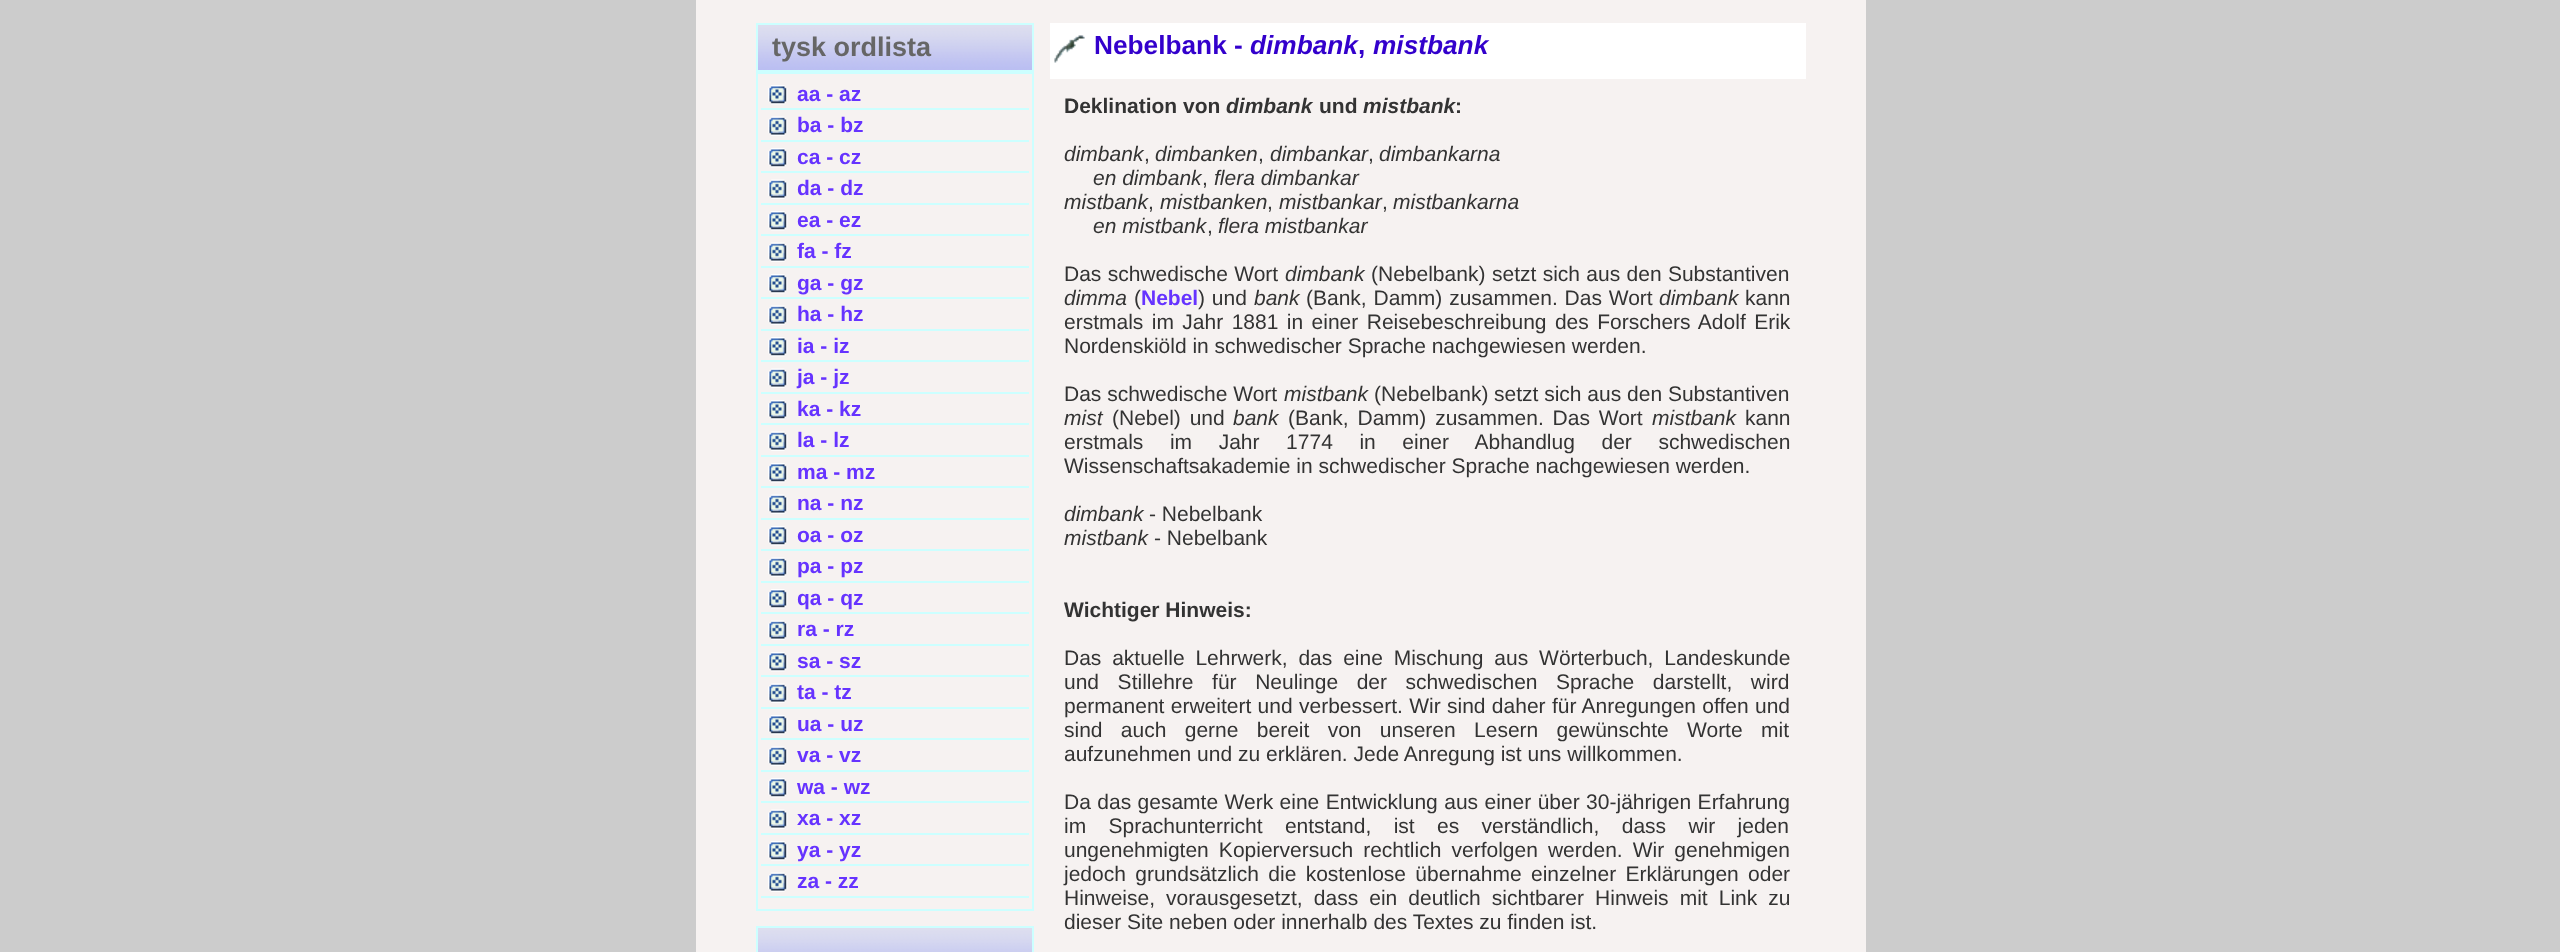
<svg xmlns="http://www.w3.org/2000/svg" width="2560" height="952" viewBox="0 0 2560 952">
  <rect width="100%" height="100%" fill="#ccc"/>
  <path d="M696 0h1170v952H696z" fill="#f6f2f1"/>
  <image x="758" y="25" width="274" height="45" href="img/1.png"/>
  <path d="M757 24h276v47H757z" fill="none" stroke="#cff" stroke-width="2"/>
  <path d="M757 73h276v837H757z" fill="none" stroke="#cff" stroke-width="2"/>
  <image x="768" y="85" width="20" height="20" href="img/2.png"/>
  <path d="M761 108h268v2H761z" fill="#cff"/>
  <image x="768" y="116" width="20" height="20" href="img/3.png"/>
  <path d="M761 140h268v2H761z" fill="#cff"/>
  <image x="768" y="148" width="20" height="20" href="img/2.png"/>
  <path d="M761 171h268v2H761z" fill="#cff"/>
  <image x="768" y="179" width="20" height="20" href="img/3.png"/>
  <path d="M761 203h268v2H761z" fill="#cff"/>
  <image x="768" y="211" width="20" height="20" href="img/2.png"/>
  <path d="M761 234h268v2H761z" fill="#cff"/>
  <image x="768" y="242" width="20" height="20" href="img/3.png"/>
  <path d="M761 266h268v2H761z" fill="#cff"/>
  <image x="768" y="274" width="20" height="20" href="img/2.png"/>
  <path d="M761 297h268v2H761z" fill="#cff"/>
  <image x="768" y="305" width="20" height="20" href="img/3.png"/>
  <path d="M761 329h268v2H761z" fill="#cff"/>
  <image x="768" y="337" width="20" height="20" href="img/2.png"/>
  <path d="M761 360h268v2H761z" fill="#cff"/>
  <image x="768" y="368" width="20" height="20" href="img/3.png"/>
  <path d="M761 392h268v2H761z" fill="#cff"/>
  <image x="768" y="400" width="20" height="20" href="img/2.png"/>
  <path d="M761 423h268v2H761z" fill="#cff"/>
  <image x="768" y="431" width="20" height="20" href="img/3.png"/>
  <path d="M761 455h268v2H761z" fill="#cff"/>
  <image x="768" y="463" width="20" height="20" href="img/2.png"/>
  <path d="M761 486h268v2H761z" fill="#cff"/>
  <image x="768" y="494" width="20" height="20" href="img/3.png"/>
  <path d="M761 518h268v2H761z" fill="#cff"/>
  <image x="768" y="526" width="20" height="20" href="img/2.png"/>
  <path d="M761 549h268v2H761z" fill="#cff"/>
  <image x="768" y="557" width="20" height="20" href="img/3.png"/>
  <path d="M761 581h268v2H761z" fill="#cff"/>
  <image x="768" y="589" width="20" height="20" href="img/2.png"/>
  <path d="M761 612h268v2H761z" fill="#cff"/>
  <image x="768" y="620" width="20" height="20" href="img/3.png"/>
  <path d="M761 644h268v2H761z" fill="#cff"/>
  <image x="768" y="652" width="20" height="20" href="img/2.png"/>
  <path d="M761 675h268v2H761z" fill="#cff"/>
  <image x="768" y="683" width="20" height="20" href="img/3.png"/>
  <path d="M761 707h268v2H761z" fill="#cff"/>
  <image x="768" y="715" width="20" height="20" href="img/2.png"/>
  <path d="M761 738h268v2H761z" fill="#cff"/>
  <image x="768" y="746" width="20" height="20" href="img/3.png"/>
  <path d="M761 770h268v2H761z" fill="#cff"/>
  <image x="768" y="778" width="20" height="20" href="img/2.png"/>
  <path d="M761 801h268v2H761z" fill="#cff"/>
  <image x="768" y="809" width="20" height="20" href="img/3.png"/>
  <path d="M761 833h268v2H761z" fill="#cff"/>
  <image x="768" y="841" width="20" height="20" href="img/2.png"/>
  <path d="M761 864h268v2H761z" fill="#cff"/>
  <image x="768" y="872" width="20" height="20" href="img/3.png"/>
  <path d="M761 896h268v2H761z" fill="#cff"/>
  <image x="758" y="928" width="274" height="24" href="img/4.png"/>
  <path d="M757 927h276v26H757z" fill="none" stroke="#cff" stroke-width="2"/>
  <path d="M1050 23h756v56H1050z" fill="#fff"/>
  <image x="1054" y="35" width="31" height="28" href="img/5.png"/>
  <text x="772" y="56" font-family="Liberation Sans" font-size="27" font-weight="bold" fill="#666">tysk ordlista</text>
  <g font-family="Liberation Sans" font-size="21" font-weight="bold" fill="#63f">
    <text x="797" y="101">aa - az</text>
    <text x="797" y="132">ba - bz</text>
    <text x="797" y="164">ca - cz</text>
    <text x="797" y="195">da - dz</text>
    <text x="797" y="227">ea - ez</text>
    <text x="797" y="258">fa - fz</text>
    <text x="797" y="290">ga - gz</text>
    <text x="797" y="321">ha - hz</text>
    <text x="797" y="353">ia - iz</text>
    <text x="797" y="384">ja - jz</text>
    <text x="797" y="416">ka - kz</text>
    <text x="797" y="447">la - lz</text>
    <text x="797" y="479">ma - mz</text>
    <text x="797" y="510">na - nz</text>
    <text x="797" y="542">oa - oz</text>
    <text x="797" y="573">pa - pz</text>
    <text x="797" y="605">qa - qz</text>
    <text x="797" y="636">ra - rz</text>
    <text x="797" y="668">sa - sz</text>
    <text x="797" y="699">ta - tz</text>
    <text x="797" y="731">ua - uz</text>
    <text x="797" y="762">va - vz</text>
    <text x="797" y="794">wa - wz</text>
    <text x="797" y="825">xa - xz</text>
    <text x="797" y="857">ya - yz</text>
    <text x="797" y="888">za - zz</text>
  </g>
  <text x="1094" y="54" font-family="Liberation Sans" font-size="26.25" font-weight="bold" fill="#30c">Nebelbank -</text>
  <text x="1250" y="54" font-family="Liberation Sans" font-size="26.25" font-weight="bold" font-style="italic" fill="#30c">dimbank</text>
  <text x="1358" y="54" font-family="Liberation Sans" font-size="26.25" font-weight="bold" fill="#30c">,</text>
  <text x="1373" y="54" font-family="Liberation Sans" font-size="26.25" font-weight="bold" font-style="italic" fill="#30c">mistbank</text>
  <text x="1064" y="113" font-family="Liberation Sans" font-size="21" font-weight="bold" fill="#333">Deklination von</text>
  <text x="1226" y="113" font-family="Liberation Sans" font-size="21" font-weight="bold" font-style="italic" fill="#333">dimbank</text>
  <text x="1319" y="113" font-family="Liberation Sans" font-size="21" font-weight="bold" fill="#333">und</text>
  <text x="1363" y="113" font-family="Liberation Sans" font-size="21" font-weight="bold" font-style="italic" fill="#333">mistbank</text>
  <text x="1455" y="113" font-family="Liberation Sans" font-size="21" font-weight="bold" fill="#333">:</text>
  <text x="1064" y="161" font-family="Liberation Sans" font-size="21" font-style="italic" fill="#333">dimbank</text>
  <text x="1144" y="161" font-family="Liberation Sans" font-size="21" fill="#333">,</text>
  <text x="1155" y="161" font-family="Liberation Sans" font-size="21" font-style="italic" fill="#333">dimbanken</text>
  <text x="1258" y="161" font-family="Liberation Sans" font-size="21" fill="#333">,</text>
  <text x="1270" y="161" font-family="Liberation Sans" font-size="21" font-style="italic" fill="#333">dimbankar</text>
  <text x="1368" y="161" font-family="Liberation Sans" font-size="21" fill="#333">,</text>
  <g font-family="Liberation Sans" font-size="21" font-style="italic" fill="#333">
    <text x="1379" y="161">dimbankarna</text>
    <text x="1093" y="185">en dimbank</text>
  </g>
  <text x="1202" y="185" font-family="Liberation Sans" font-size="21" fill="#333">,</text>
  <g font-family="Liberation Sans" font-size="21" font-style="italic" fill="#333">
    <text x="1214" y="185">flera dimbankar</text>
    <text x="1064" y="209">mistbank</text>
  </g>
  <text x="1148" y="209" font-family="Liberation Sans" font-size="21" fill="#333">,</text>
  <text x="1160" y="209" font-family="Liberation Sans" font-size="21" font-style="italic" fill="#333">mistbanken</text>
  <text x="1267" y="209" font-family="Liberation Sans" font-size="21" fill="#333">,</text>
  <text x="1279" y="209" font-family="Liberation Sans" font-size="21" font-style="italic" fill="#333">mistbankar</text>
  <text x="1382" y="209" font-family="Liberation Sans" font-size="21" fill="#333">,</text>
  <g font-family="Liberation Sans" font-size="21" font-style="italic" fill="#333">
    <text x="1393" y="209">mistbankarna</text>
    <text x="1093" y="233">en mistbank</text>
  </g>
  <text x="1207" y="233" font-family="Liberation Sans" font-size="21" fill="#333">,</text>
  <text x="1218" y="233" font-family="Liberation Sans" font-size="21" font-style="italic" fill="#333">flera mistbankar</text>
  <text x="1064" y="281" word-spacing="0.5" font-family="Liberation Sans" font-size="21" fill="#333">Das schwedische Wort</text>
  <text x="1285" y="281" font-family="Liberation Sans" font-size="21" font-style="italic" fill="#333">dimbank</text>
  <g font-family="Liberation Sans" font-size="21" fill="#333">
    <text x="1371" y="281">(Nebelbank)</text>
    <text x="1492" y="281" word-spacing="0.5">setzt sich aus den Substantiven</text>
  </g>
  <text x="1064" y="305" font-family="Liberation Sans" font-size="21" font-style="italic" fill="#333">dimma</text>
  <text x="1134" y="305" font-family="Liberation Sans" font-size="21" fill="#333">(</text>
  <text x="1141" y="305" font-family="Liberation Sans" font-size="21" font-weight="bold" fill="#63f">Nebel</text>
  <text x="1198" y="305" word-spacing="1" font-family="Liberation Sans" font-size="21" fill="#333">) und</text>
  <text x="1254" y="305" font-family="Liberation Sans" font-size="21" font-style="italic" fill="#333">bank</text>
  <text x="1306" y="305" word-spacing="1" font-family="Liberation Sans" font-size="21" fill="#333">(Bank, Damm) zusammen. Das Wort</text>
  <text x="1659" y="305" font-family="Liberation Sans" font-size="21" font-style="italic" fill="#333">dimbank</text>
  <g font-family="Liberation Sans" font-size="21" fill="#333">
    <text x="1745" y="305">kann</text>
    <text x="1064" y="329" word-spacing="2.6">erstmals im Jahr 1881 in einer Reisebeschreibung des Forschers Adolf Erik</text>
    <text x="1064" y="353">Nordenskiöld in schwedischer Sprache nachgewiesen werden.</text>
    <text x="1064" y="401">Das schwedische Wort</text>
  </g>
  <text x="1284" y="401" font-family="Liberation Sans" font-size="21" font-style="italic" fill="#333">mistbank</text>
  <g font-family="Liberation Sans" font-size="21" fill="#333">
    <text x="1374" y="401">(Nebelbank)</text>
    <text x="1494" y="401">setzt sich aus den Substantiven</text>
  </g>
  <text x="1064" y="425" font-family="Liberation Sans" font-size="21" font-style="italic" fill="#333">mist</text>
  <text x="1112" y="425" word-spacing="3" font-family="Liberation Sans" font-size="21" fill="#333">(Nebel) und</text>
  <text x="1233" y="425" font-family="Liberation Sans" font-size="21" font-style="italic" fill="#333">bank</text>
  <text x="1288" y="425" word-spacing="3" font-family="Liberation Sans" font-size="21" fill="#333">(Bank, Damm) zusammen. Das Wort</text>
  <text x="1652" y="425" font-family="Liberation Sans" font-size="21" font-style="italic" fill="#333">mistbank</text>
  <g font-family="Liberation Sans" font-size="21" fill="#333">
    <text x="1745" y="425">kann</text>
    <text x="1064" y="449" word-spacing="20.75">erstmals im Jahr 1774 in einer Abhandlug der schwedischen</text>
    <text x="1064" y="473">Wissenschaftsakademie in schwedischer Sprache nachgewiesen werden.</text>
  </g>
  <text x="1064" y="521" font-family="Liberation Sans" font-size="21" font-style="italic" fill="#333">dimbank</text>
  <text x="1149" y="521" font-family="Liberation Sans" font-size="21" fill="#333">- Nebelbank</text>
  <text x="1064" y="545" font-family="Liberation Sans" font-size="21" font-style="italic" fill="#333">mistbank</text>
  <text x="1154" y="545" font-family="Liberation Sans" font-size="21" fill="#333">- Nebelbank</text>
  <text x="1064" y="617" font-family="Liberation Sans" font-size="21" font-weight="bold" fill="#333">Wichtiger Hinweis:</text>
  <g font-family="Liberation Sans" font-size="21" fill="#333">
    <text x="1064" y="665" word-spacing="5">Das aktuelle Lehrwerk, das eine Mischung aus Wörterbuch, Landeskunde</text>
    <text x="1064" y="689" word-spacing="12.75">und Stillehre für Neulinge der schwedischen Sprache darstellt, wird</text>
    <text x="1064" y="713" word-spacing="0.5">permanent erweitert und verbessert. Wir sind daher für Anregungen offen und</text>
    <text x="1064" y="737" word-spacing="12.5">sind auch gerne bereit von unseren Lesern gewünschte Worte mit</text>
    <text x="1064" y="761">aufzunehmen und zu erklären. Jede Anregung ist uns willkommen.</text>
    <text x="1064" y="809" word-spacing="0.6">Da das gesamte Werk eine Entwicklung aus einer über 30-jährigen Erfahrung</text>
    <text x="1064" y="833" word-spacing="16.5">im Sprachunterricht entstand, ist es verständlich, dass wir jeden</text>
    <text x="1064" y="857" word-spacing="4.25">ungenehmigten Kopierversuch rechtlich verfolgen werden. Wir genehmigen</text>
    <text x="1064" y="881" word-spacing="3.5">jedoch grundsätzlich die kostenlose übernahme einzelner Erklärungen oder</text>
    <text x="1064" y="905" word-spacing="5.25">Hinweise, vorausgesetzt, dass ein deutlich sichtbarer Hinweis mit Link zu</text>
    <text x="1064" y="929">dieser Site neben oder innerhalb des Textes zu finden ist.</text>
  </g>
</svg>
